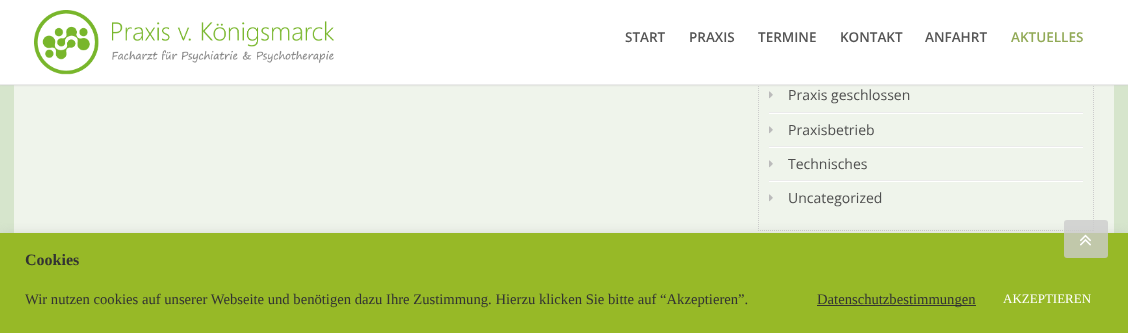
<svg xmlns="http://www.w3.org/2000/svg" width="1128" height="333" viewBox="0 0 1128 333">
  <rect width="100%" height="100%" fill="#d6e5cc"/>
  <path d="M14 85h1100v148H14z" fill="#eff4eb"/>
  <path d="M1093.5-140V231" fill="none" stroke="#ccc" stroke-dasharray="1 1"/>
  <path d="M758 230.5H1094" fill="none" stroke="#ccc" stroke-dasharray="1 1"/>
  <path d="M758.5-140V231" fill="none" stroke="#ccc" stroke-dasharray="1 1"/>
  <path d="M0 0h1128v85H0z" fill="#ccc" filter="blur(1px)"/>
  <path d="M0 0h1128v84H0z" fill="#fff"/>
  <path d="M0 84h1128v1H0z" fill="#ebebeb"/>
  <image x="34" y="10" width="300" height="65" href="img/1.png"/>
  <path d="M769 112h314v1H769z" fill="#ebebeb"/>
  <image x="769" y="91" width="4" height="8" href="img/2.png"/>
  <path d="M769 113h314v1H769z" fill="#fff"/>
  <path d="M769 146h314v1H769z" fill="#ebebeb"/>
  <image x="769" y="126" width="4" height="8" href="img/2.png"/>
  <path d="M769 147h314v1H769z" fill="#fff"/>
  <path d="M769 180h314v1H769z" fill="#ebebeb"/>
  <image x="769" y="160" width="4" height="8" href="img/2.png"/>
  <path d="M769 181h314v1H769z" fill="#fff"/>
  <image x="769" y="194" width="4" height="8" href="img/2.png"/>
  <path d="M0 232h1128v100H0z" fill="#acabab4d" filter="blur(5px)"/>
  <path d="M0 233h1128v100H0z" fill="#97b927"/>
  <rect x="1064" y="220" width="44" height="38" rx="3" fill="#cccccccc"/>
  <image x="1080" y="234" width="11" height="12" href="img/3.png"/>
  <path d="M817 305h159v1H817z" fill="#333"/>
  <g font-family="Open Sans" font-size="13.5" font-weight="600" fill="#555">
    <text x="625" y="42">START</text>
    <text x="689" y="42">PRAXIS</text>
    <text x="758" y="42">TERMINE</text>
    <text x="840" y="42">KONTAKT</text>
    <text x="925" y="42">ANFAHRT</text>
  </g>
  <text x="1011" y="42" font-family="Open Sans" font-size="13.5" font-weight="600" fill="#92aa57">AKTUELLES</text>
  <g font-family="Open Sans" font-size="14" fill="#4f4f4f">
    <text x="788" y="100">Praxis geschlossen</text>
    <text x="788" y="135">Praxisbetrieb</text>
    <text x="788" y="169">Technisches</text>
    <text x="788" y="203">Uncategorized</text>
  </g>
  <text x="25" y="265" font-family="Liberation Serif" font-size="16" font-weight="bold" fill="#333">Cookies</text>
  <g font-family="Liberation Serif" font-size="14.65" fill="#333">
    <text x="25" y="304">Wir nutzen cookies auf unserer Webseite und benötigen dazu Ihre Zustimmung. Hierzu klicken Sie bitte auf “Akzeptieren”.</text>
    <text x="817" y="304">Datenschutzbestimmungen</text>
  </g>
  <text x="1003" y="303" font-family="Liberation Serif" font-size="13" fill="#fff">AKZEPTIEREN</text>
</svg>
